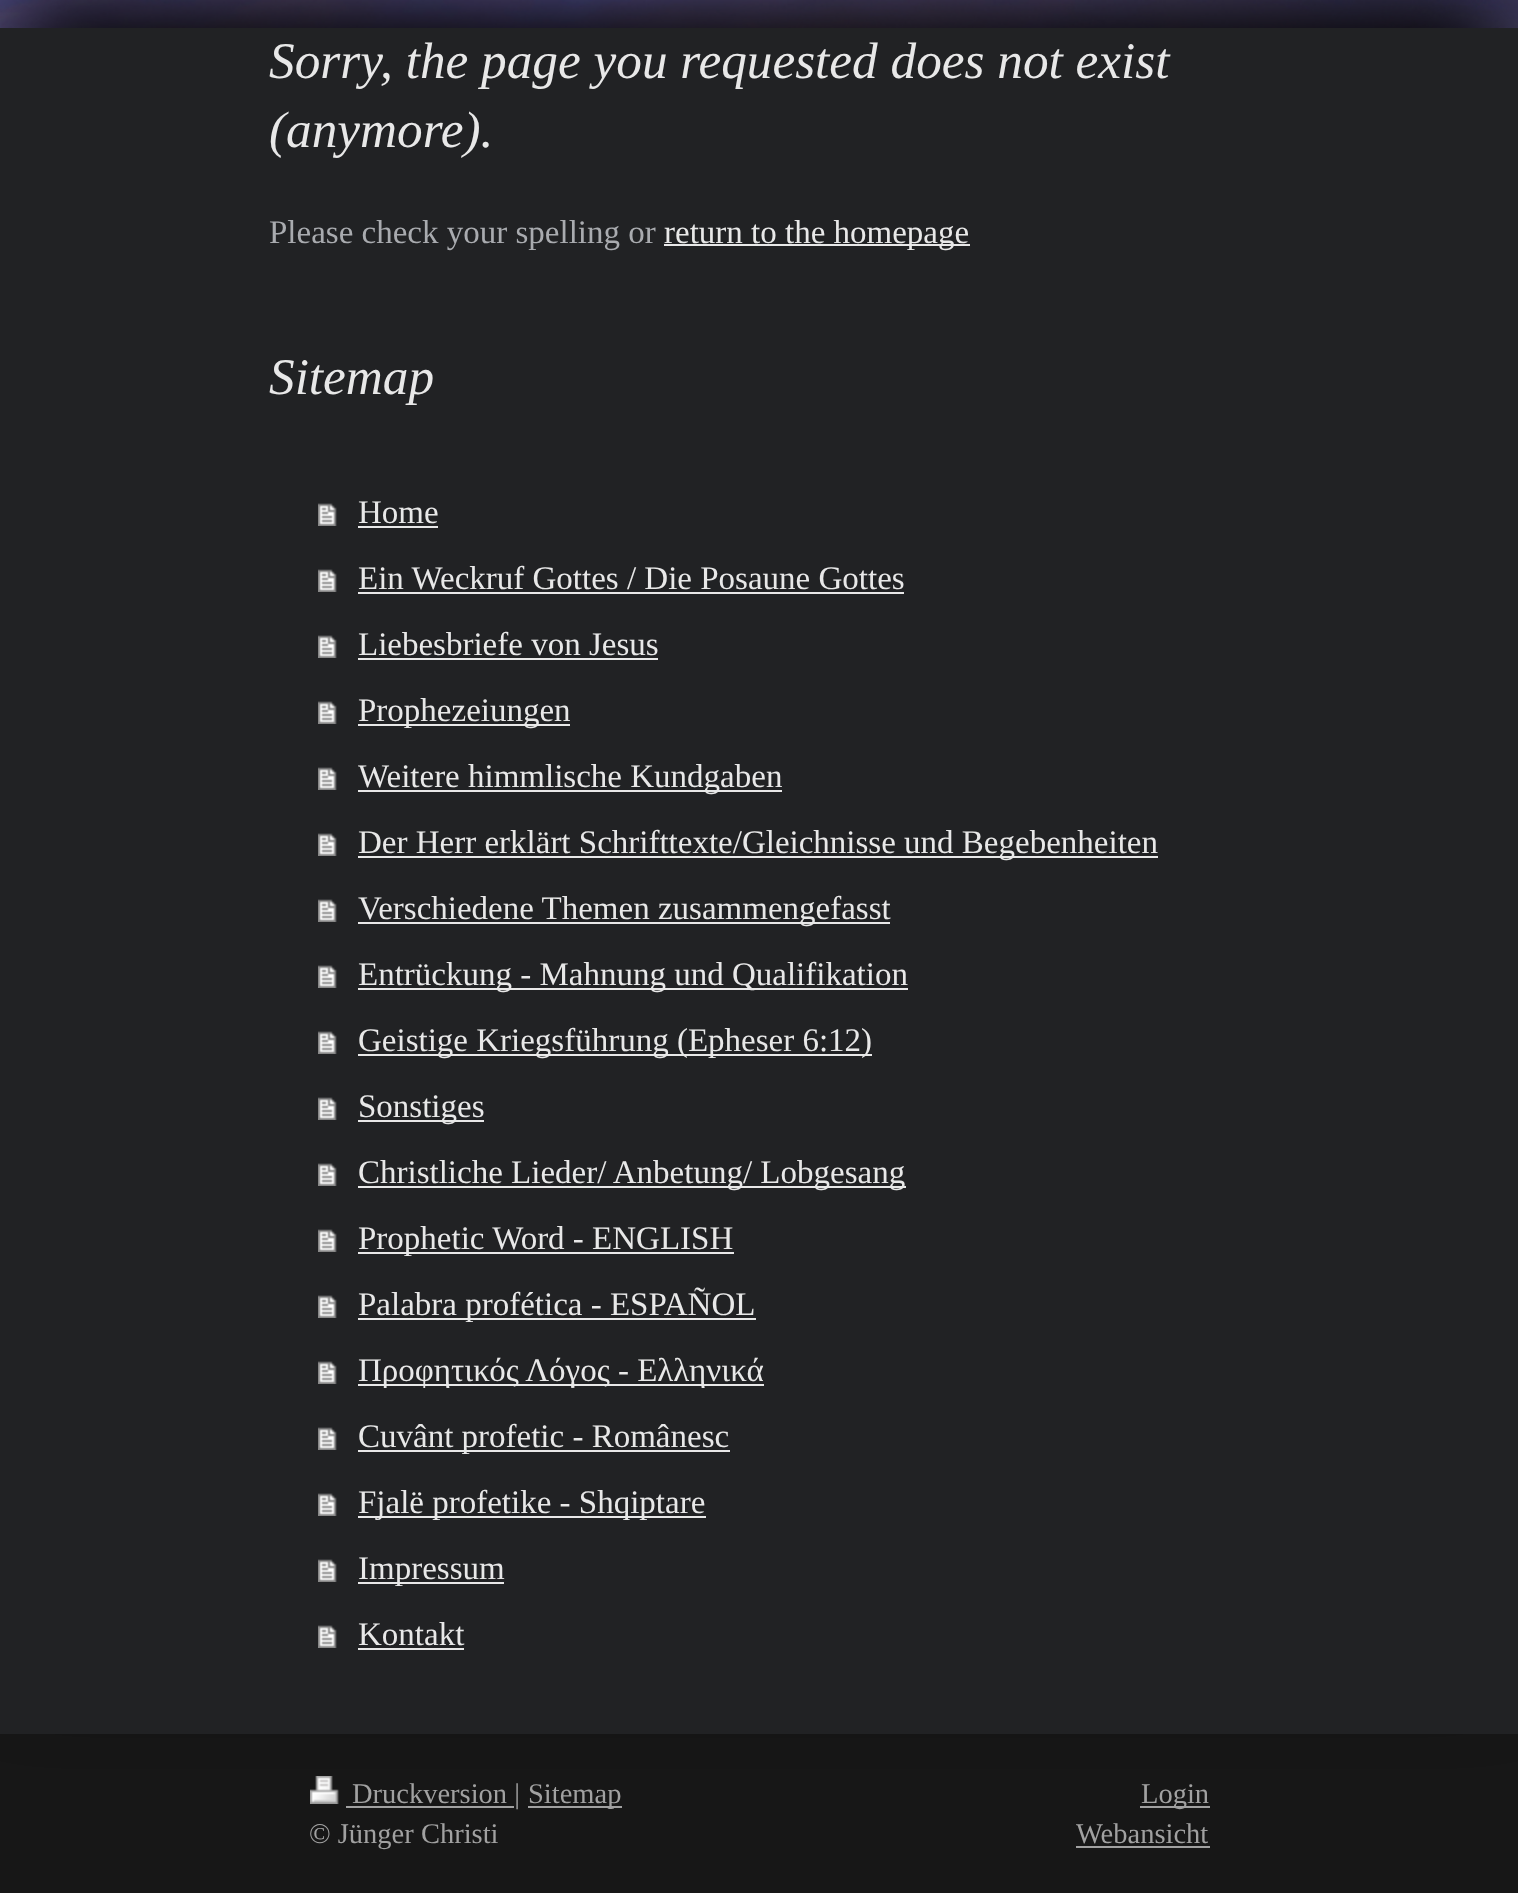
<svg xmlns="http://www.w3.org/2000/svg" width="1518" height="1893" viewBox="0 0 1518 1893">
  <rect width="100%" height="100%" fill="#fff"/>
  <image x="0" y="0" width="1518" height="28" href="img/1.png"/>
  <path d="M0 1734h1518v159H0z" fill="#171717"/>
  <path d="M20 8h1478v1666H20z" fill="#000" filter="blur(40px)"/>
  <path d="M0 28h1518v1706H0z" fill="#212224"/>
  <path d="M664 244h306v2H664z" fill="#e8e8e8"/>
  <image x="318" y="503" width="19" height="23" href="img/2.png"/>
  <path d="M358 526h80v2H358z" fill="#e8e8e8"/>
  <image x="318" y="569" width="19" height="23" href="img/2.png"/>
  <path d="M358 592h546v2H358z" fill="#e8e8e8"/>
  <image x="318" y="635" width="19" height="23" href="img/2.png"/>
  <path d="M358 658h300v2H358z" fill="#e8e8e8"/>
  <image x="318" y="701" width="19" height="23" href="img/2.png"/>
  <path d="M358 724h212v2H358z" fill="#e8e8e8"/>
  <image x="318" y="767" width="19" height="23" href="img/2.png"/>
  <path d="M358 790h424v2H358z" fill="#e8e8e8"/>
  <image x="318" y="833" width="19" height="23" href="img/2.png"/>
  <path d="M358 856h800v2H358z" fill="#e8e8e8"/>
  <image x="318" y="899" width="19" height="23" href="img/2.png"/>
  <path d="M358 922h532v2H358z" fill="#e8e8e8"/>
  <image x="318" y="965" width="19" height="23" href="img/2.png"/>
  <path d="M358 988h550v2H358z" fill="#e8e8e8"/>
  <image x="318" y="1031" width="19" height="23" href="img/2.png"/>
  <path d="M358 1054h514v2H358z" fill="#e8e8e8"/>
  <image x="318" y="1097" width="19" height="23" href="img/2.png"/>
  <path d="M358 1120h126v2H358z" fill="#e8e8e8"/>
  <image x="318" y="1163" width="19" height="23" href="img/2.png"/>
  <path d="M358 1186h548v2H358z" fill="#e8e8e8"/>
  <image x="318" y="1229" width="19" height="23" href="img/2.png"/>
  <path d="M358 1252h376v2H358z" fill="#e8e8e8"/>
  <image x="318" y="1295" width="19" height="23" href="img/2.png"/>
  <path d="M358 1318h398v2H358z" fill="#e8e8e8"/>
  <image x="318" y="1361" width="19" height="23" href="img/2.png"/>
  <path d="M358 1384h406v2H358z" fill="#e8e8e8"/>
  <image x="318" y="1427" width="19" height="23" href="img/2.png"/>
  <path d="M358 1450h372v2H358z" fill="#e8e8e8"/>
  <image x="318" y="1493" width="19" height="23" href="img/2.png"/>
  <path d="M358 1516h348v2H358z" fill="#e8e8e8"/>
  <image x="318" y="1559" width="19" height="23" href="img/2.png"/>
  <path d="M358 1582h146v2H358z" fill="#e8e8e8"/>
  <image x="318" y="1625" width="19" height="23" href="img/2.png"/>
  <path d="M358 1648h106v2H358z" fill="#e8e8e8"/>
  <image x="310" y="1776" width="29" height="28" href="img/3.png"/>
  <path d="M346 1806h168v2H346z" fill="#a1a1a1"/>
  <path d="M528 1806h94v2H528z" fill="#a1a1a1"/>
  <path d="M1140 1806h70v2H1140z" fill="#a1a1a1"/>
  <path d="M1076 1846h134v2H1076z" fill="#a1a1a1"/>
  <g font-family="Liberation Serif" font-size="51.25" font-style="italic" fill="#e8e8e8">
    <text x="269" y="78">Sorry, the page you requested does not exist</text>
    <text x="269" y="147">(anymore).</text>
  </g>
  <text x="269" y="243" font-family="Liberation Serif" font-size="33" fill="#a9abaf">Please check your spelling or</text>
  <text x="664" y="243" font-family="Liberation Serif" font-size="33" fill="#e8e8e8">return to the homepage</text>
  <text x="269" y="394" font-family="Liberation Serif" font-size="51.25" font-style="italic" fill="#e8e8e8">Sitemap</text>
  <g font-family="Liberation Serif" font-size="33" fill="#e8e8e8">
    <text x="358" y="523">Home</text>
    <text x="358" y="589">Ein Weckruf Gottes / Die Posaune Gottes</text>
    <text x="358" y="655">Liebesbriefe von Jesus</text>
    <text x="358" y="721">Prophezeiungen</text>
    <text x="358" y="787">Weitere himmlische Kundgaben</text>
    <text x="358" y="853">Der Herr erklärt Schrifttexte/Gleichnisse und Begebenheiten</text>
    <text x="358" y="919">Verschiedene Themen zusammengefasst</text>
    <text x="358" y="985">Entrückung - Mahnung und Qualifikation</text>
    <text x="358" y="1051">Geistige Kriegsführung (Epheser 6:12)</text>
    <text x="358" y="1117">Sonstiges</text>
    <text x="358" y="1183">Christliche Lieder/ Anbetung/ Lobgesang</text>
    <text x="358" y="1249">Prophetic Word - ENGLISH</text>
    <text x="358" y="1315">Palabra profética - ESPAÑOL</text>
    <text x="358" y="1381">Προφητικός Λόγος - Ελληνικά</text>
    <text x="358" y="1447">Cuvânt profetic - Românesc</text>
    <text x="358" y="1513">Fjalë profetike - Shqiptare</text>
    <text x="358" y="1579">Impressum</text>
    <text x="358" y="1645">Kontakt</text>
  </g>
  <g font-family="Liberation Serif" font-size="28.5" fill="#a1a1a1">
    <text x="352" y="1803">Druckversion |</text>
    <text x="528" y="1803">Sitemap</text>
    <text x="309" y="1843">© Jünger Christi</text>
    <text x="1141" y="1803">Login</text>
    <text x="1076" y="1843">Webansicht</text>
  </g>
</svg>
